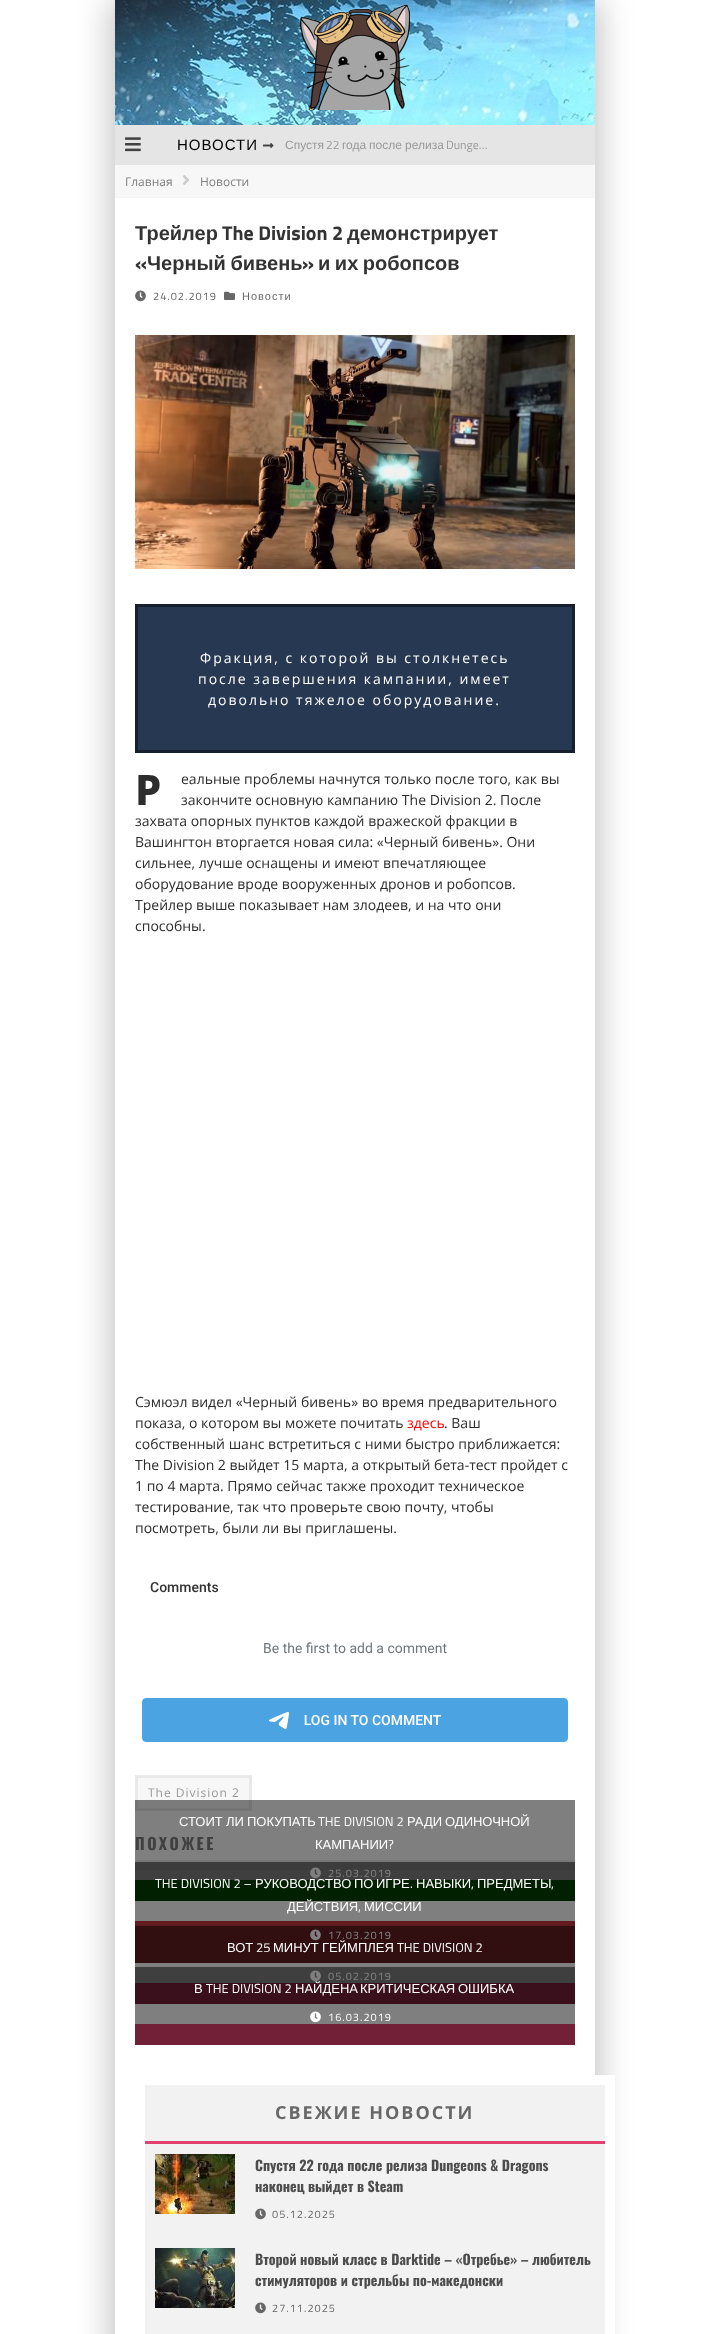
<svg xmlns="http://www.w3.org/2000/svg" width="709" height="2334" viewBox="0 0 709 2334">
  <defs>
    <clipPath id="clip1"><path d="M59 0H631V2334H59ZM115 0H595V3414H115Z" clip-rule="evenodd"/></clipPath>
    <clipPath id="clip2"><path d="M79 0H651V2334H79ZM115 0H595V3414H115Z" clip-rule="evenodd"/></clipPath>
  </defs>
  <rect width="100%" height="100%" fill="#fff"/>
  <g clip-path="url(#clip1)">
    <path d="M105 0h480v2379H105z" fill="#00000026" filter="blur(15px)"/>
  </g>
  <g clip-path="url(#clip2)">
    <path d="M125 0h480v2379H125z" fill="#00000026" filter="blur(15px)"/>
  </g>
  <image x="115" y="0" width="480" height="125" href="img/1.png"/>
  <image x="300" y="4" width="110" height="106" href="img/2.png"/>
  <path d="M115 125h480v40H115z" fill="#e5e5e5"/>
  <image x="125" y="137" width="16" height="15" href="img/3.png"/>
  <image x="263" y="143" width="11" height="5" href="img/4.png"/>
  <path d="M115 165h480v32H115z" fill="#f7f7f7"/>
  <path d="M115 197h480v1H115z" fill="#f3f3f3"/>
  <image x="182" y="175" width="7" height="10" href="img/5.png"/>
  <image x="135" y="290" width="11" height="12" href="img/6.png"/>
  <image x="224" y="291" width="11" height="9" href="img/7.png"/>
  <image x="135" y="335" width="440" height="234" href="img/8.png"/>
  <path d="M136.5 605.5h437v146H136.5z" fill="#263852" stroke="#16202f" stroke-width="3"/>
  <image x="142" y="1582" width="426" height="160" href="img/9.png"/>
  <path d="M136.5 1776.5h114v33H136.5z" fill="#f7f7f7" stroke="#e9e9e9" stroke-width="3"/>
  <path d="M135 1880h440v21H135z" fill="#008000"/>
  <path d="M135 1921h440v42H135z" fill="#c4393e"/>
  <path d="M135 1983h440v21H135z" fill="#e4406e"/>
  <path d="M135 2024h440v21H135z" fill="#e4406e"/>
  <path d="M135 1860h440v10H135z" fill="#f0f0f0"/>
  <path d="M595 2075h20v259H595z" fill="#fff"/>
  <path d="M145 2085h460v56H145z" fill="#f2f2f2"/>
  <path d="M145 2141h460v3H145z" fill="#e4406e"/>
  <path d="M145 2144h460v190H145z" fill="#f2f2f2"/>
  <image x="155" y="2154" width="80" height="60" href="img/13.png"/>
  <image x="255" y="2208" width="11" height="12" href="img/14.png"/>
  <image x="155" y="2248" width="80" height="60" href="img/15.png"/>
  <image x="255" y="2302" width="11" height="12" href="img/14.png"/>
  <text x="177" y="150" font-family="Liberation Sans" font-size="15" letter-spacing="1" fill="#000">НОВОСТИ</text>
  <text x="285" y="149" font-family="Liberation Sans" font-size="12" fill="#999">Спустя</text>
  <text x="326" y="149" font-family="Titillium Web" font-size="12" fill="#999">22</text>
  <g font-family="Liberation Sans" font-size="12" fill="#999">
    <text x="342" y="149">года</text>
    <text x="369" y="149">после</text>
    <text x="405" y="149">релиза</text>
  </g>
  <text x="446" y="149" font-family="Titillium Web" font-size="12" fill="#999">Dunge…</text>
  <g font-family="Open Sans" font-size="12" fill="#808080">
    <text x="125" y="186">Главная</text>
    <text x="200" y="186">Новости</text>
  </g>
  <text x="135" y="240" font-family="Liberation Sans" font-size="20" font-weight="bold" fill="#333">Трейлер</text>
  <text x="222" y="240" font-family="Titillium Web" font-size="20" font-weight="bold" fill="#333">The Division 2</text>
  <text x="347" y="240" font-family="Liberation Sans" font-size="20" font-weight="bold" fill="#333">демонстрирует</text>
  <text x="135" y="270" font-family="Titillium Web" font-size="20" font-weight="bold" fill="#333">«</text>
  <text x="147" y="270" word-spacing="-1" font-family="Liberation Sans" font-size="20" font-weight="bold" fill="#333">Черный бивень</text>
  <text x="302" y="270" font-family="Titillium Web" font-size="20" font-weight="bold" fill="#333">»</text>
  <text x="318" y="270" word-spacing="-1" font-family="Liberation Sans" font-size="20" font-weight="bold" fill="#333">и их робопсов</text>
  <text x="153" y="300" font-family="Titillium Web" font-size="11" letter-spacing="1" fill="#676767">24.02.2019</text>
  <text x="242" y="300" font-family="Liberation Sans" font-size="11" letter-spacing="1" fill="#676767">Новости</text>
  <g font-family="Open Sans" font-size="14" letter-spacing="2" fill="#fff">
    <text x="200" y="663">Фракция, с которой вы столкнетесь</text>
    <text x="198" y="684">после завершения кампании, имеет</text>
    <text x="208" y="705">довольно тяжелое оборудование.</text>
  </g>
  <text x="135" y="805" font-family="Noto Sans" font-size="42" font-weight="800" fill="#2d2d2d">Р</text>
  <g font-family="Open Sans" font-size="14" fill="#2d2d2d">
    <text x="181" y="784">еальные проблемы начнутся только после того, как вы</text>
    <text x="181" y="805">закончите основную кампанию The Division 2. После</text>
    <text x="135" y="826">захвата опорных пунктов каждой вражеской фракции в</text>
    <text x="135" y="847">Вашингтон вторгается новая сила: «Черный бивень». Они</text>
    <text x="135" y="868">сильнее, лучше оснащены и имеют впечатляющее</text>
    <text x="135" y="889">оборудование вроде вооруженных дронов и робопсов.</text>
    <text x="135" y="910">Трейлер выше показывает нам злодеев, и на что они</text>
    <text x="135" y="931">способны.</text>
    <text x="135" y="1407">Сэмюэл видел «Черный бивень» во время предварительного</text>
    <text x="135" y="1428">показа, о котором вы можете почитать</text>
  </g>
  <text x="407" y="1428" font-family="Open Sans" font-size="14" fill="#f00">здесь</text>
  <g font-family="Open Sans" font-size="14" fill="#2d2d2d">
    <text x="444" y="1428">. Ваш</text>
    <text x="135" y="1449">собственный шанс встретиться с ними быстро приближается:</text>
    <text x="135" y="1470">The Division 2 выйдет 15 марта, а открытый бета-тест пройдет с</text>
    <text x="135" y="1491">1 по 4 марта. Прямо сейчас также проходит техническое</text>
    <text x="135" y="1512">тестирование, так что проверьте свою почту, чтобы</text>
    <text x="135" y="1533">посмотреть, были ли вы приглашены.</text>
  </g>
  <text x="148" y="1797" font-family="Open Sans" font-size="12" letter-spacing="1" fill="#999">The Division 2</text>
  <text x="135" y="1850" font-family="Oswald" font-size="16" font-weight="bold" letter-spacing="2.5" fill="#808080">ПОХОЖЕЕ</text>
  <path d="M135 1800h440v101H135z" fill="#00000080"/>
  <text x="328" y="1877" font-family="Titillium Web" font-size="11" letter-spacing="1" fill="#fff">25.03.2019</text>
  <image x="310" y="1867" width="11" height="12" href="img/10.png"/>
  <path d="M135 1862h440v101H135z" fill="#00000080"/>
  <text x="328" y="1939" font-family="Titillium Web" font-size="11" letter-spacing="1" fill="#fff">17.03.2019</text>
  <image x="310" y="1929" width="11" height="12" href="img/11.png"/>
  <path d="M135 1926h440v78H135z" fill="#00000080"/>
  <text x="328" y="1980" font-family="Titillium Web" font-size="11" letter-spacing="1" fill="#fff">05.02.2019</text>
  <image x="310" y="1970" width="11" height="12" href="img/12.png"/>
  <path d="M135 1967h440v78H135z" fill="#00000080"/>
  <text x="328" y="2021" font-family="Titillium Web" font-size="11" letter-spacing="1" fill="#fff">16.03.2019</text>
  <image x="310" y="2011" width="11" height="12" href="img/12.png"/>
  <g font-family="Liberation Sans" font-size="13" fill="#fff">
    <text x="458" y="1993">ОШИБКА</text>
    <text x="360" y="1993">КРИТИЧЕСКАЯ</text>
    <text x="295" y="1993">НАЙДЕНА</text>
  </g>
  <text x="206" y="1993" font-family="Titillium Web" font-size="13" fill="#fff">THE DIVISION 2</text>
  <text x="194" y="1993" font-family="Liberation Sans" font-size="13" fill="#fff">В</text>
  <text x="397" y="1952" font-family="Titillium Web" font-size="13" fill="#fff">THE DIVISION 2</text>
  <g font-family="Liberation Sans" font-size="13" fill="#fff">
    <text x="322" y="1952">ГЕЙМПЛЕЯ</text>
    <text x="273" y="1952">МИНУТ</text>
  </g>
  <text x="256" y="1952" font-family="Titillium Web" font-size="13" fill="#fff">25</text>
  <g font-family="Liberation Sans" font-size="13" fill="#fff">
    <text x="227" y="1952">ВОТ</text>
    <text x="364" y="1911">МИССИИ</text>
  </g>
  <text x="358" y="1911" font-family="Titillium Web" font-size="13" fill="#fff">,</text>
  <text x="287" y="1911" font-family="Liberation Sans" font-size="13" fill="#fff">ДЕЙСТВИЯ</text>
  <text x="551" y="1888" font-family="Titillium Web" font-size="13" fill="#fff">,</text>
  <text x="477" y="1888" font-family="Liberation Sans" font-size="13" fill="#fff">ПРЕДМЕТЫ</text>
  <text x="471" y="1888" font-family="Titillium Web" font-size="13" fill="#fff">,</text>
  <text x="416" y="1888" font-family="Liberation Sans" font-size="13" fill="#fff">НАВЫКИ</text>
  <text x="410" y="1888" font-family="Titillium Web" font-size="13" fill="#fff">.</text>
  <g font-family="Liberation Sans" font-size="13" fill="#fff">
    <text x="376" y="1888">ИГРЕ</text>
    <text x="354" y="1888">ПО</text>
    <text x="255" y="1888">РУКОВОДСТВО</text>
  </g>
  <g font-family="Titillium Web" font-size="13" fill="#fff">
    <text x="155" y="1888">THE DIVISION 2 –</text>
    <text x="388" y="1849">?</text>
  </g>
  <g font-family="Liberation Sans" font-size="13" fill="#fff">
    <text x="315" y="1849">КАМПАНИИ</text>
    <text x="445" y="1826">ОДИНОЧНОЙ</text>
    <text x="407" y="1826">РАДИ</text>
  </g>
  <text x="318" y="1826" font-family="Titillium Web" font-size="13" fill="#fff">THE DIVISION 2</text>
  <g font-family="Liberation Sans" font-size="13" fill="#fff">
    <text x="247" y="1826">ПОКУПАТЬ</text>
    <text x="226" y="1826">ЛИ</text>
    <text x="179" y="1826">СТОИТ</text>
  </g>
  <text x="275" y="2119" font-family="Open Sans" font-size="18" font-weight="bold" letter-spacing="2" fill="#676767">СВЕЖИЕ НОВОСТИ</text>
  <g font-family="Oswald" font-size="14" font-weight="bold" fill="#4d4d4d">
    <text x="255" y="2171">Спустя 22 года после релиза Dungeons &amp; Dragons</text>
    <text x="255" y="2192">наконец выйдет в Steam</text>
  </g>
  <text x="272" y="2218" font-family="Titillium Web" font-size="11" letter-spacing="1" fill="#676767">05.12.2025</text>
  <g font-family="Oswald" font-size="14" font-weight="bold" fill="#4d4d4d">
    <text x="255" y="2265">Второй новый класс в Darktide – «Отребье» – любитель</text>
    <text x="255" y="2286">стимуляторов и стрельбы по-македонски</text>
  </g>
  <text x="272" y="2312" font-family="Titillium Web" font-size="11" letter-spacing="1" fill="#676767">27.11.2025</text>
</svg>
